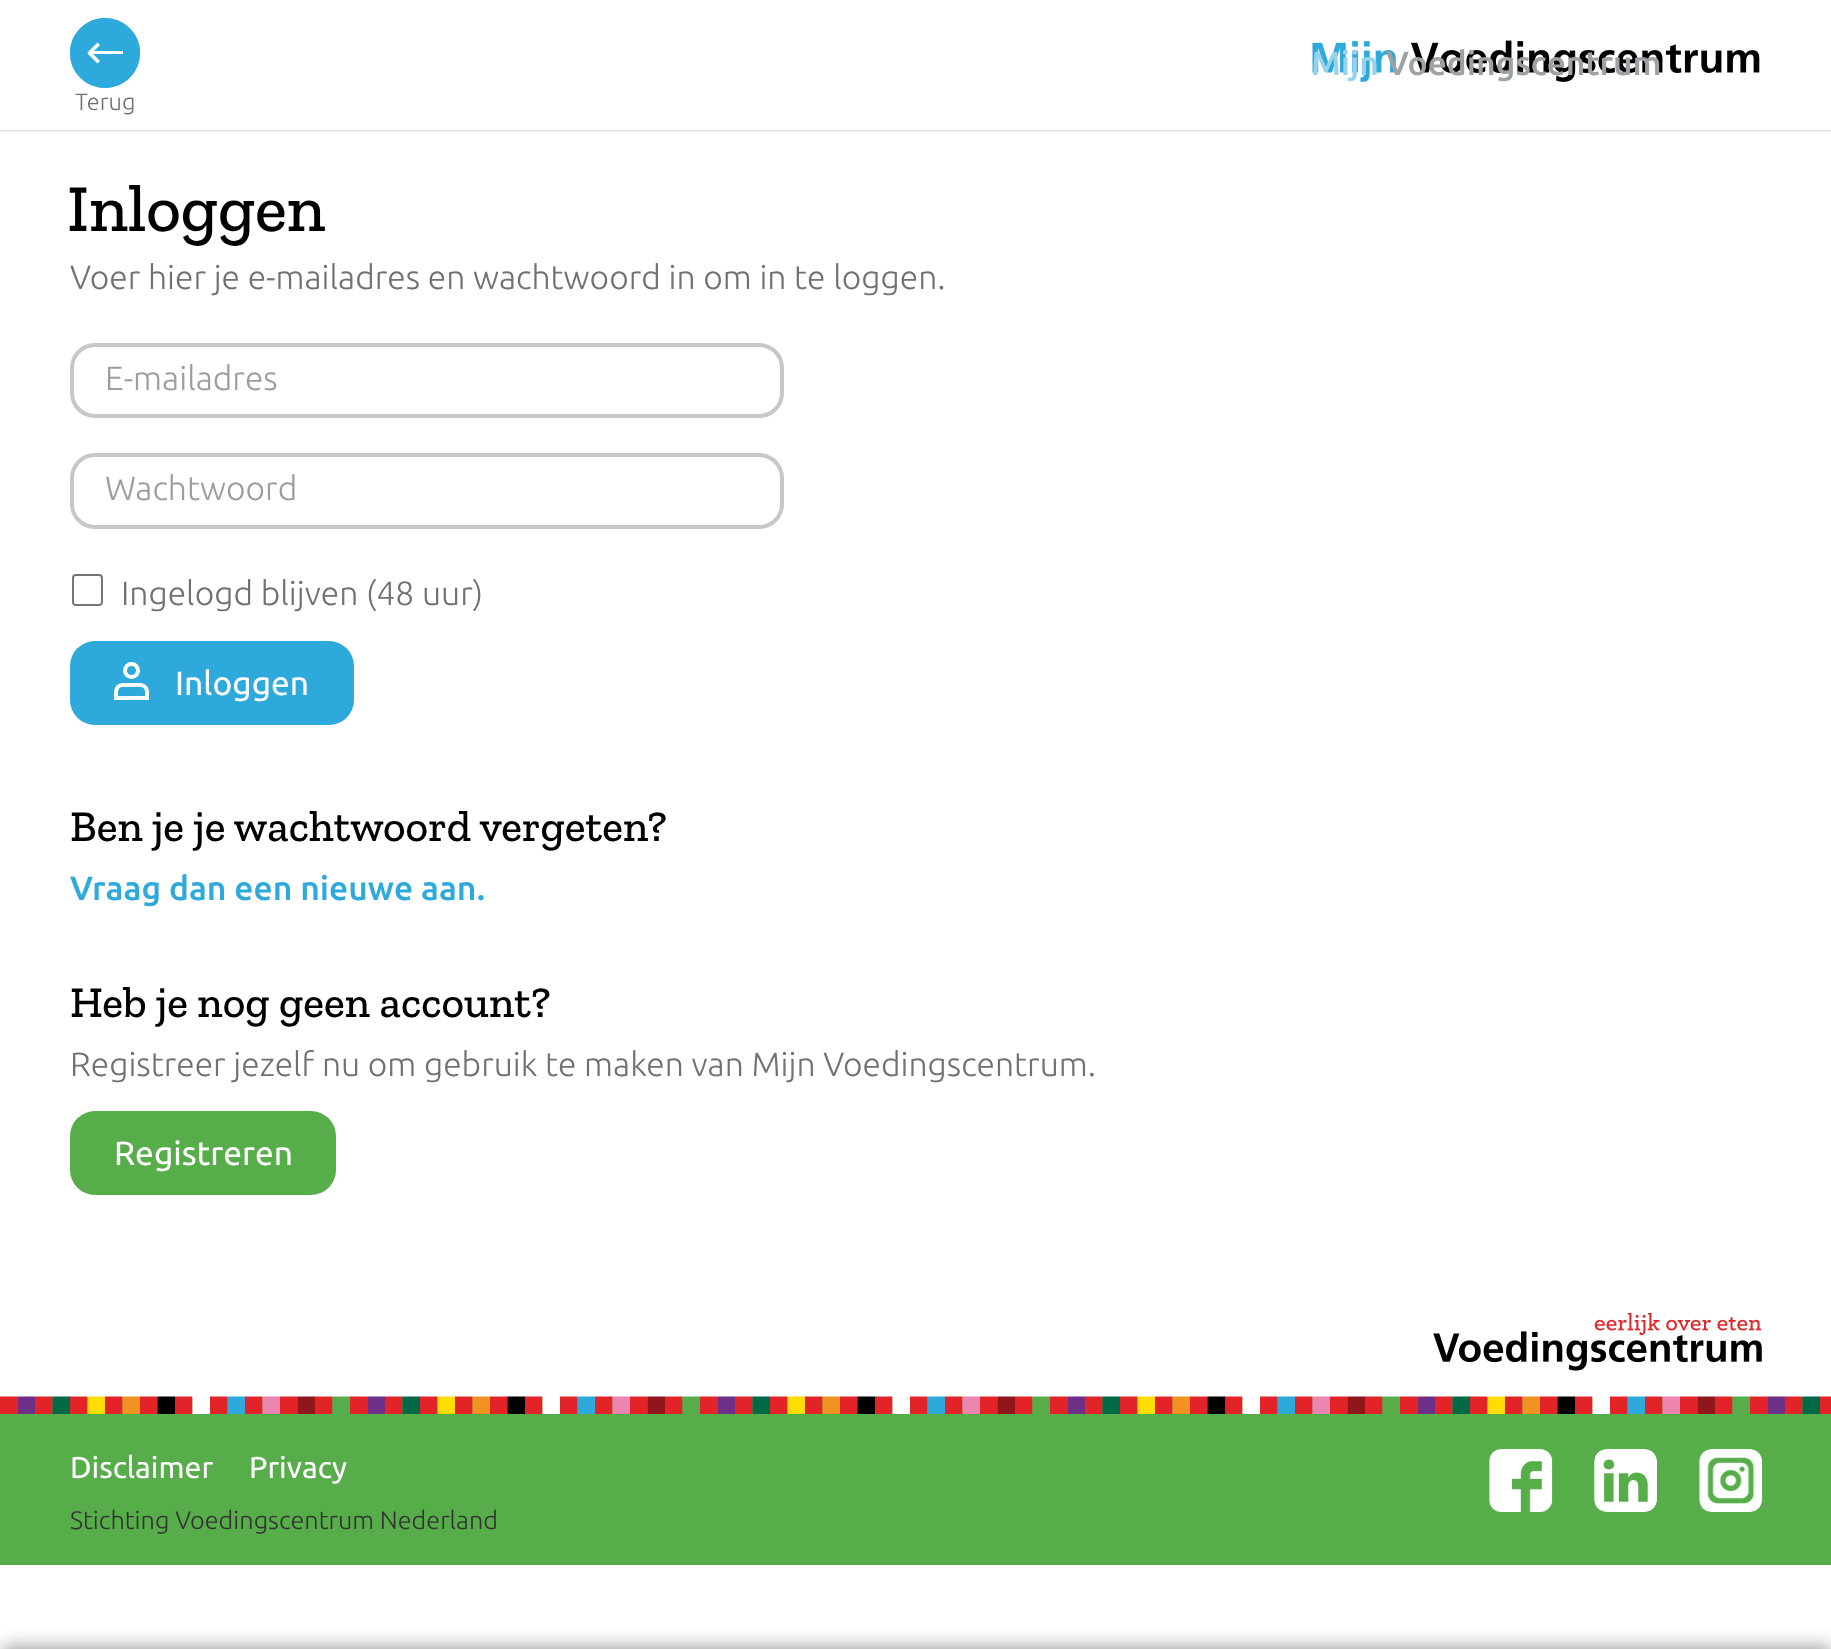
<svg xmlns="http://www.w3.org/2000/svg" width="1831" height="1649" viewBox="0 0 1831 1649">
  <rect width="100%" height="100%" fill="#fff"/>
  <path d="M0 0h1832v130H0z" fill="#00000066" filter="blur(1px)"/>
  <path d="M0 0h1831v130H0z" fill="#fff"/>
  <image x="1312" y="40" width="448" height="42" href="img/1.png"/>
  <circle cx="105" cy="53" r="35" fill="#2ea9dc"/>
  <path d="M91 51h32v3H91z" fill="#fff"/>
  <path d="M97.5 63.5L87.5 53.5L90 51L100 61Z" fill="#fff"/>
  <path d="M90 55L87.5 52.5L97.5 42.5L100 45Z" fill="#fff"/>
  <circle cx="105" cy="53" r="33" fill="none" stroke="#2ea9dc" stroke-width="4"/>
  <rect x="72" y="345" width="710" height="71" rx="23" fill="none" stroke="#c8c7c7" stroke-width="4"/>
  <rect x="72" y="455" width="710" height="72" rx="23" fill="none" stroke="#c8c7c7" stroke-width="4"/>
  <rect x="73" y="575" width="29" height="30" rx="3" fill="none" stroke="#767676" stroke-width="2"/>
  <rect x="70" y="641" width="284" height="84" rx="25" fill="#2ea9dc"/>
  <circle cx="131.5" cy="670.5" r="6.5" fill="none" stroke="#fff" stroke-width="4"/>
  <path d="M122.5 685H140.5C144 685 147 688 147 691.5V698H116V691.5C116 688 119 685 122.5 685Z" fill="none" stroke="#fff" stroke-width="4"/>
  <rect x="70" y="1111" width="266" height="84" rx="25" fill="#57ad49"/>
  <image x="1433" y="1313" width="329" height="58" href="img/2.png"/>
  <path d="M0 1397h1831v168H0z" fill="#57ad49"/>
  <image x="0" y="1396" width="1831" height="18" href="img/3.png"/>
  <image x="1489" y="1449" width="64" height="63" href="img/4.png"/>
  <image x="1594" y="1449" width="63" height="63" href="img/5.png"/>
  <image x="1699" y="1449" width="64" height="63" href="img/6.png"/>
  <path d="M2 1647h1829v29H2z" fill="#00000066" filter="blur(9px)"/>
  <text x="1311" y="75" font-family="Ubuntu" font-size="33.6" font-weight="500" fill="#96d4ee">Mijn</text>
  <text x="1386" y="75" font-family="Ubuntu" font-size="33.6" font-weight="500" fill="#9ea2a4">Voedingscentrum</text>
  <text x="75" y="110" font-family="Ubuntu" font-size="23.5" font-weight="300" fill="#717171">Terug</text>
  <text x="67" y="231" font-family="Zilla Slab" font-size="67" font-weight="500" fill="#000">Inloggen</text>
  <text x="70" y="289" font-family="Ubuntu" font-size="33.6" font-weight="300" fill="#717171">Voer hier je e-mailadres en wachtwoord in om in te loggen.</text>
  <g font-family="Ubuntu" font-size="33.6" font-weight="300" fill="#9d9d9d">
    <text x="105" y="390">E-mailadres</text>
    <text x="105" y="500">Wachtwoord</text>
  </g>
  <text x="121" y="605" font-family="Ubuntu" font-size="33.6" font-weight="300" fill="#717171">Ingelogd blijven (48 uur)</text>
  <text x="175" y="695" font-family="Ubuntu" font-size="33.6" fill="#fff">Inloggen</text>
  <text x="70" y="841" font-family="Zilla Slab" font-size="43.75" font-weight="500" fill="#000">Ben je je wachtwoord vergeten?</text>
  <text x="70" y="900" font-family="Ubuntu" font-size="33.6" font-weight="500" fill="#2ea9dc">Vraag dan een nieuwe aan.</text>
  <text x="70" y="1017" font-family="Zilla Slab" font-size="43.75" font-weight="500" fill="#000">Heb je nog geen account?</text>
  <text x="70" y="1076" font-family="Ubuntu" font-size="33.6" font-weight="300" fill="#717171">Registreer jezelf nu om gebruik te maken van Mijn Voedingscentrum.</text>
  <text x="114" y="1165" font-family="Ubuntu" font-size="33.6" fill="#fff">Registreren</text>
  <g font-family="Ubuntu" font-size="30.25" fill="#fff">
    <text x="70" y="1478">Disclaimer</text>
    <text x="249" y="1478">Privacy</text>
  </g>
  <text x="70" y="1529" font-family="Ubuntu" font-size="25.25" font-weight="300" fill="#333">Stichting Voedingscentrum Nederland</text>
</svg>
